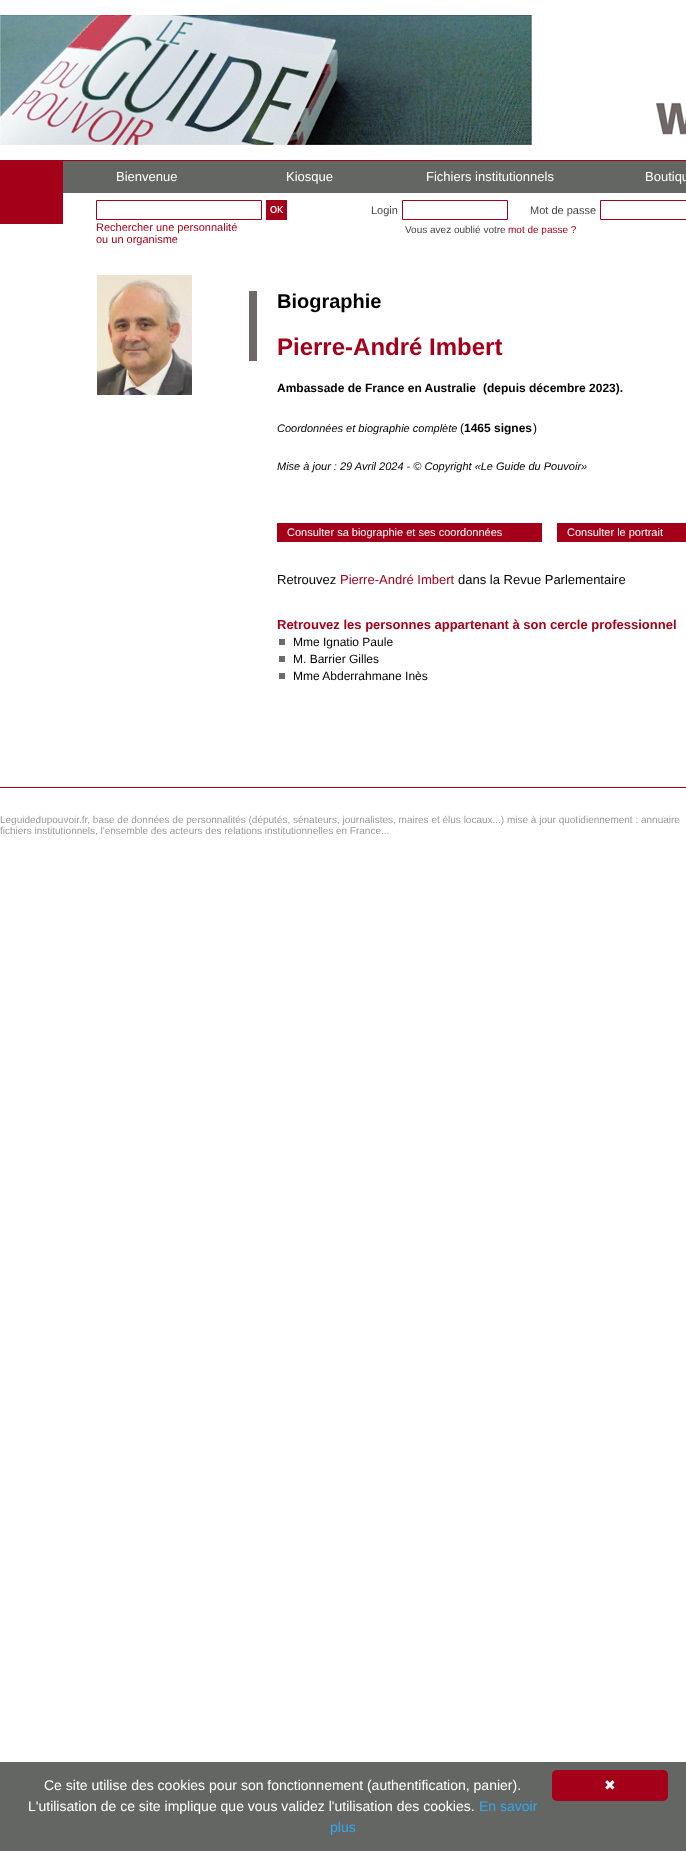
<svg xmlns="http://www.w3.org/2000/svg" width="686" height="1851" viewBox="0 0 686 1851">
  <rect width="100%" height="100%" fill="#fff"/>
  <image x="0" y="15" width="532" height="130" href="img/1.png"/>
  <image x="656" y="102" width="30" height="33" href="img/2.png"/>
  <path d="M0 160h686v1H0z" fill="#a50019"/>
  <path d="M0 161h63v63H0z" fill="#a50019"/>
  <path d="M63 161h623v32H63z" fill="#646664"/>
  <path d="M96.5 200.5h165v19H96.5z" fill="none" stroke="#a50019"/>
  <image x="266" y="200" width="21" height="20" href="img/3.png"/>
  <path d="M402.5 200.5h105v19H402.5z" fill="none" stroke="#a50019"/>
  <path d="M600.5 200.5h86v19H600.5z" fill="none" stroke="#a50019"/>
  <image x="97" y="275" width="95" height="120" href="img/4.png"/>
  <path d="M249 291h8v70H249z" fill="#6e6966"/>
  <path d="M277 523h265v19H277z" fill="#a50019"/>
  <path d="M557 523h129v19H557z" fill="#a50019"/>
  <path d="M279 639h6v6H279z" fill="#6f6a67"/>
  <path d="M279 656h6v6H279z" fill="#6f6a67"/>
  <path d="M279 673h6v6H279z" fill="#6f6a67"/>
  <path d="M0 787h686v1H0z" fill="#a50019"/>
  <path d="M0 1762h686v89H0z" fill="#646664"/>
  <rect x="552" y="1770" width="116" height="31" rx="5" fill="#a50019"/>
  <g font-family="Liberation Sans" font-size="13" fill="#fff">
    <text x="116" y="181">Bienvenue</text>
    <text x="286" y="181">Kiosque</text>
    <text x="426" y="181">Fichiers institutionnels</text>
    <text x="645" y="181">Boutiqu</text>
  </g>
  <g font-family="Liberation Sans" font-size="11" fill="#a50019">
    <text x="96" y="231">Rechercher une personnalité</text>
    <text x="96" y="243">ou un organisme</text>
  </g>
  <g font-family="Liberation Sans" font-size="11" fill="#474548">
    <text x="371" y="214">Login</text>
    <text x="530" y="214">Mot de passe</text>
  </g>
  <text x="405" y="233" font-family="Liberation Sans" font-size="10" fill="#474548">Vous avez oublié votre</text>
  <text x="508" y="233" font-family="Liberation Sans" font-size="10" fill="#a50019">mot de passe ?</text>
  <text x="277" y="308" font-family="Liberation Sans" font-size="20" font-weight="bold" fill="#000">Biographie</text>
  <text x="277" y="355" font-family="Liberation Sans" font-size="24" font-weight="bold" fill="#a50019">Pierre-André Imbert</text>
  <g font-family="Liberation Sans" font-size="12" font-weight="bold" fill="#000">
    <text x="277" y="392">Ambassade de France en Australie</text>
    <text x="483" y="392">(depuis décembre 2023).</text>
  </g>
  <text x="277" y="432" font-family="Liberation Sans" font-size="11" font-style="italic" fill="#000">Coordonnées et biographie complète</text>
  <text x="460" y="432" font-family="Liberation Sans" font-size="12" fill="#000">(</text>
  <text x="464" y="432" font-family="Liberation Sans" font-size="12" font-weight="bold" fill="#000">1465 signes</text>
  <text x="533" y="432" font-family="Liberation Sans" font-size="12" fill="#000">)</text>
  <text x="277" y="470" font-family="Liberation Sans" font-size="11" font-style="italic" fill="#000">Mise à jour : 29 Avril 2024 - © Copyright «Le Guide du Pouvoir»</text>
  <g font-family="Liberation Sans" font-size="11" fill="#fff">
    <text x="287" y="536">Consulter sa biographie et ses coordonnées</text>
    <text x="567" y="536">Consulter le portrait</text>
  </g>
  <text x="277" y="584" font-family="Liberation Sans" font-size="13" fill="#000">Retrouvez</text>
  <text x="340" y="584" font-family="Liberation Sans" font-size="13" fill="#a50019">Pierre-André Imbert</text>
  <text x="458" y="584" font-family="Liberation Sans" font-size="13" fill="#000">dans la Revue Parlementaire</text>
  <text x="277" y="629" font-family="Liberation Sans" font-size="13" font-weight="bold" fill="#a50019">Retrouvez les personnes appartenant à son cercle professionnel</text>
  <g font-family="Liberation Sans" font-size="12" fill="#000">
    <text x="293" y="646">Mme Ignatio Paule</text>
    <text x="293" y="663">M. Barrier Gilles</text>
    <text x="293" y="680">Mme Abderrahmane Inès</text>
  </g>
  <g font-family="Liberation Sans" font-size="10" fill="#999">
    <text x="0" y="823">Leguidedupouvoir.fr, base de données de personnalités (députés, sénateurs, journalistes, maires et élus locaux...) mise à jour quotidiennement : annuaire</text>
    <text x="0" y="834">fichiers institutionnels, l'ensemble des acteurs des relations institutionnelles en France...</text>
  </g>
  <g font-family="Liberation Sans" font-size="14" fill="#fff">
    <text x="44" y="1790">Ce site utilise des cookies pour son fonctionnement (authentification, panier).</text>
    <text x="28" y="1811">L'utilisation de ce site implique que vous validez l'utilisation des cookies.</text>
  </g>
  <g font-family="Liberation Sans" font-size="14" fill="#31a8f0">
    <text x="479" y="1811">En savoir</text>
    <text x="330" y="1832">plus</text>
  </g>
  <text x="604" y="1790" font-family="DejaVu Sans" font-size="14" fill="#fff">✖</text>
</svg>
